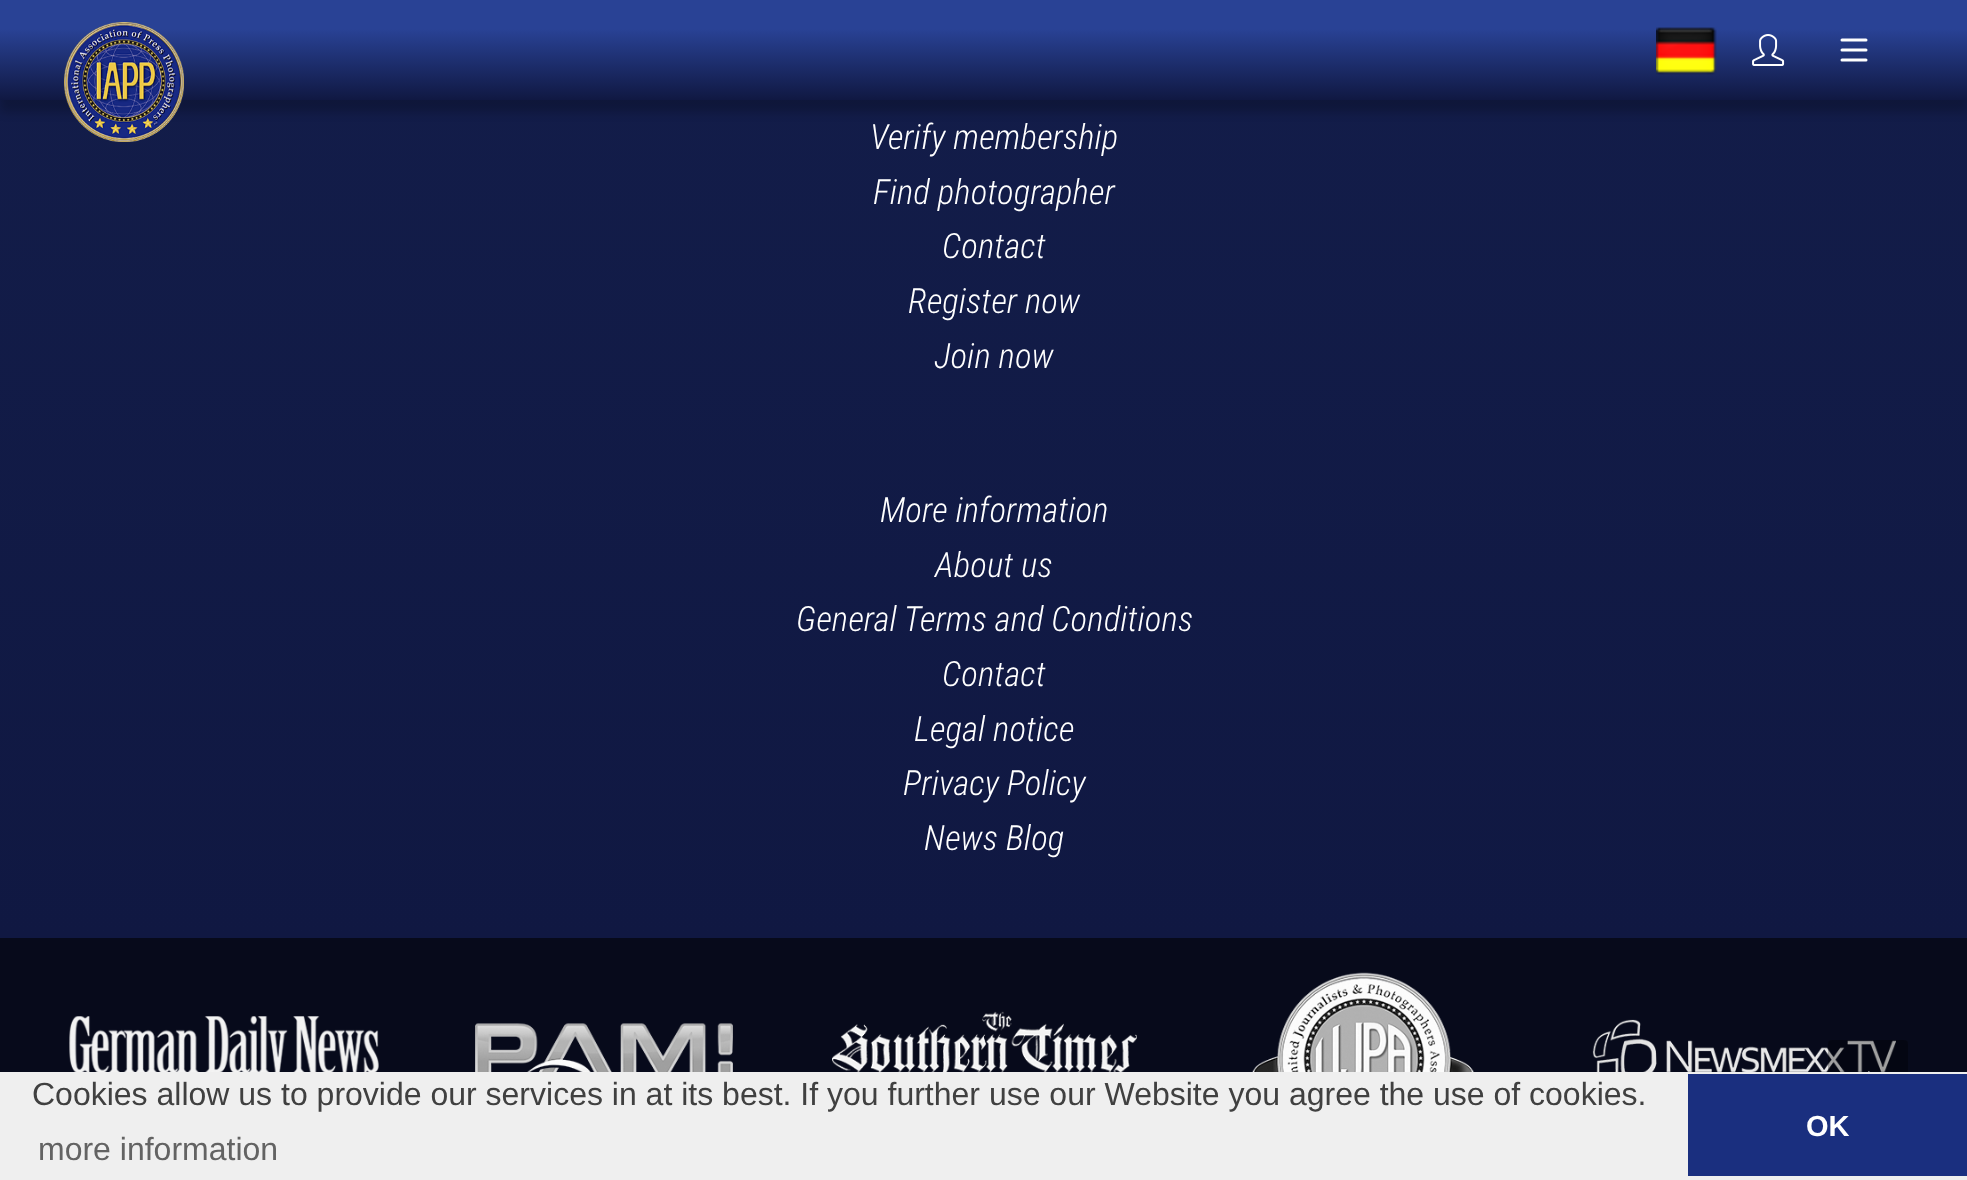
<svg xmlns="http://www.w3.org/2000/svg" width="1967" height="1180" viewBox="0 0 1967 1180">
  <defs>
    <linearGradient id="g1" gradientUnits="userSpaceOnUse" x1="984" y1="938" x2="984" y2="-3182"><stop offset="0" stop-color="#101842"/><stop offset="1" stop-color="#1d2e65"/></linearGradient>
    <linearGradient id="g2" gradientUnits="userSpaceOnUse" x1="984" y1="100" x2="984" y2="0"><stop offset="0" stop-color="#101842"/><stop offset="0.71" stop-color="#294295"/></linearGradient>
  </defs>
  <rect width="100%" height="100%" fill="#070a1b"/>
  <path d="M0 100h1967v838H0z" fill="url(#g1)"/>
  <path d="M0 12h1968v100H0z" fill="#00000033" filter="blur(5px)"/>
  <path d="M0 0h1967v100H0z" fill="url(#g2)"/>
  <image x="64" y="22" width="120" height="120" href="img/1.png"/>
  <image x="1656" y="27" width="61" height="48" href="img/2.png"/>
  <image x="1752" y="34" width="33" height="32" href="img/3.png"/>
  <path d="M1842 40H1866M1842 50H1866M1866 60H1842" fill="none" stroke="#fff" stroke-width="3" stroke-linecap="round"/>
  <image x="69" y="1016" width="310" height="56" href="img/4.png"/>
  <image x="475" y="1023" width="258" height="49" href="img/5.png"/>
  <image x="832" y="1011" width="305" height="61" href="img/6.png"/>
  <image x="1252" y="972" width="223" height="100" href="img/7.png"/>
  <image x="1592" y="1019" width="304" height="53" href="img/8.png"/>
  <rect x="1828" y="1040" width="80" height="80" rx="4" fill="#0000004d"/>
  <image x="1868" y="1071" width="2" height="1" href="img/9.png"/>
  <path d="M0 1072h1967v108H0z" fill="#efefef"/>
  <path d="M1688 1074h279v102H1688z" fill="#1a2f7f"/>
  <g font-family="Roboto Condensed" font-size="34.75" font-weight="300" font-style="italic" fill="#fff">
    <text x="870" y="149">Verify membership</text>
    <text x="873" y="204">Find photographer</text>
    <text x="942" y="258">Contact</text>
    <text x="908" y="313">Register now</text>
    <text x="934" y="368">Join now</text>
    <text x="880" y="522">More information</text>
    <text x="935" y="577">About us</text>
    <text x="796" y="631">General Terms and Conditions</text>
    <text x="942" y="686">Contact</text>
    <text x="914" y="741">Legal notice</text>
    <text x="903" y="795">Privacy Policy</text>
    <text x="924" y="850">News Blog</text>
  </g>
  <text x="32" y="1105" font-family="Liberation Sans" font-size="32" fill="#404040">Cookies allow us to provide our services in at its best. If you further use our Website you agree the use of cookies.</text>
  <text x="38" y="1160" font-family="Liberation Sans" font-size="32" fill="#636363">more information</text>
  <text x="1806" y="1136" font-family="Liberation Sans" font-size="29" font-weight="bold" fill="#fff">OK</text>
</svg>
